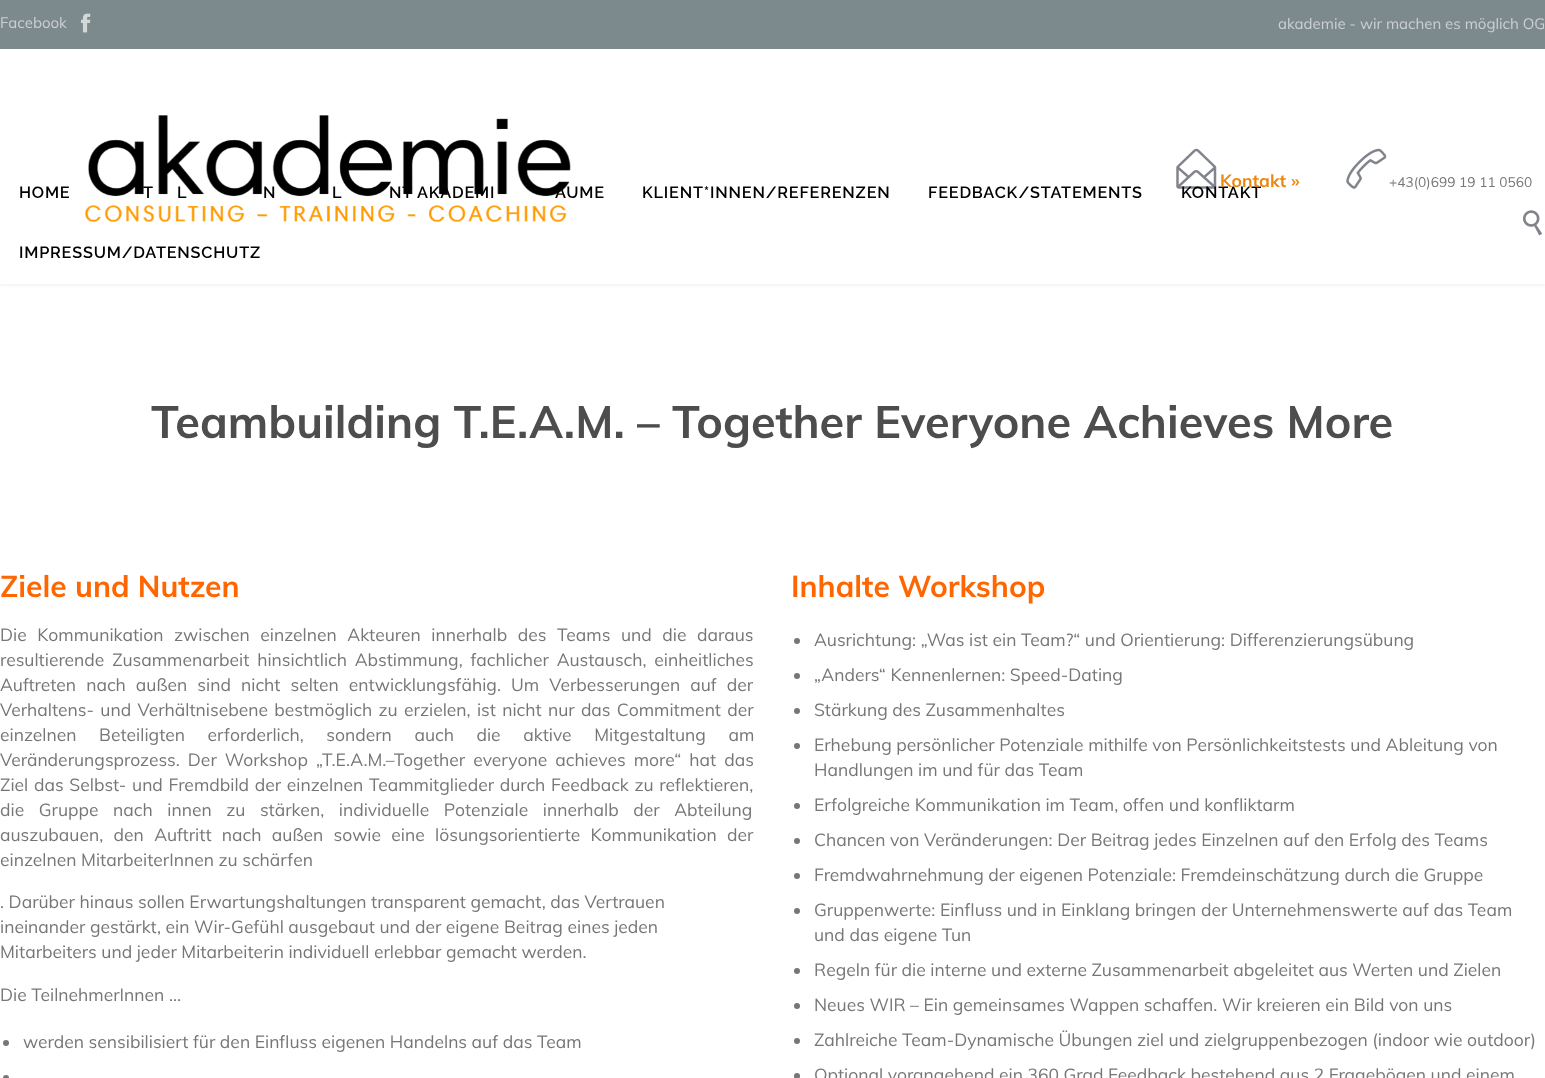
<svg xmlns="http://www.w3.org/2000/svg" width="1545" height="1078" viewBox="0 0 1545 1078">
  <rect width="100%" height="100%" fill="#fff"/>
  <path d="M0 3h1545v283H0z" fill="#0000000a" filter="blur(1px)"/>
  <path d="M0 0h1545v49H0z" fill="#7c8a8d"/>
  <image x="81" y="13" width="10" height="20" href="img/1.png"/>
  <path d="M0 49h1545v235H0z" fill="#fff"/>
  <image x="1523" y="210" width="19" height="26" href="img/2.png"/>
  <image x="85" y="115" width="486" height="107" href="img/3.png"/>
  <image x="1176" y="148" width="41" height="41" href="img/4.png"/>
  <image x="1346" y="148" width="41" height="41" href="img/5.png"/>
  <circle cx="6" cy="1043" r="3" fill="#767676"/>
  <circle cx="6" cy="1078" r="3" fill="#767676"/>
  <circle cx="797" cy="641" r="3" fill="#767676"/>
  <circle cx="797" cy="676" r="3" fill="#767676"/>
  <circle cx="797" cy="711" r="3" fill="#767676"/>
  <circle cx="797" cy="746" r="3" fill="#767676"/>
  <circle cx="797" cy="806" r="3" fill="#767676"/>
  <circle cx="797" cy="841" r="3" fill="#767676"/>
  <circle cx="797" cy="876" r="3" fill="#767676"/>
  <circle cx="797" cy="911" r="3" fill="#767676"/>
  <circle cx="797" cy="971" r="3" fill="#767676"/>
  <circle cx="797" cy="1006" r="3" fill="#767676"/>
  <circle cx="797" cy="1041" r="3" fill="#767676"/>
  <circle cx="797" cy="1076" r="3" fill="#767676"/>
  <g font-family="Muli" font-size="15" fill="#ccd0d0">
    <text x="0" y="28">Facebook</text>
    <text x="1278" y="29">akademie - wir machen es möglich OG</text>
  </g>
  <g font-family="Raleway" font-size="16.25" font-weight="600" letter-spacing="0.8" fill="#000">
    <text x="19" y="198">HOME</text>
    <text x="143" y="198">T</text>
    <text x="177" y="198">L</text>
    <text x="263" y="198">N</text>
    <text x="332" y="198">L</text>
    <text x="389" y="198">NT AKADEMI</text>
    <text x="555" y="198">ÄUME</text>
    <text x="642" y="198">KLIENT*INNEN/REFERENZEN</text>
    <text x="928" y="198">FEEDBACK/STATEMENTS</text>
    <text x="1181" y="198">KONTAKT</text>
    <text x="19" y="258">IMPRESSUM/DATENSCHUTZ</text>
  </g>
  <text x="1220" y="187" font-family="Muli" font-size="17.5" font-weight="bold" fill="#eb880e">Kontakt »</text>
  <text x="1389" y="187" font-family="Muli" font-size="13.75" fill="#767676">+43(0)699 19 11 0560</text>
  <text x="151" y="438" font-family="Muli" font-size="45" font-weight="bold" fill="#4d4d4d">Teambuilding T.E.A.M. – Together Everyone Achieves More</text>
  <text x="0" y="597" font-family="Muli" font-size="30" font-weight="bold" fill="#f60">Ziele und Nutzen</text>
  <g font-family="Muli" font-size="17.5" fill="#767676">
    <text x="0" y="641" word-spacing="6">Die Kommunikation zwischen einzelnen Akteuren innerhalb des Teams und die daraus</text>
    <text x="0" y="666" word-spacing="3.25">resultierende Zusammenarbeit hinsichtlich Abstimmung, fachlicher Austausch, einheitliches</text>
    <text x="0" y="691" word-spacing="5.5">Auftreten nach außen sind nicht selten entwicklungsfähig. Um Verbesserungen auf der</text>
    <text x="0" y="716" word-spacing="1.75">Verhaltens- und Verhältnisebene bestmöglich zu erzielen, ist nicht nur das Commitment der</text>
    <text x="0" y="741" word-spacing="18">einzelnen Beteiligten erforderlich, sondern auch die aktive Mitgestaltung am</text>
    <text x="0" y="766" word-spacing="3.5">Veränderungsprozess. Der Workshop „T.E.A.M.–Together everyone achieves more“ hat das</text>
    <text x="0" y="791" word-spacing="1.1">Ziel das Selbst- und Fremdbild der einzelnen Teammitglieder durch Feedback zu reflektieren,</text>
    <text x="0" y="816" word-spacing="10">die Gruppe nach innen zu stärken, individuelle Potenziale innerhalb der Abteilung</text>
    <text x="0" y="841" word-spacing="5.75">auszubauen, den Auftritt nach außen sowie eine lösungsorientierte Kommunikation der</text>
    <text x="0" y="866">einzelnen MitarbeiterInnen zu schärfen</text>
    <text x="0" y="908">. Darüber hinaus sollen Erwartungshaltungen transparent gemacht, das Vertrauen</text>
    <text x="0" y="933">ineinander gestärkt, ein Wir-Gefühl ausgebaut und der eigene Beitrag eines jeden</text>
    <text x="0" y="958">Mitarbeiters und jeder Mitarbeiterin individuell erlebbar gemacht werden.</text>
    <text x="0" y="1001">Die TeilnehmerInnen …</text>
    <text x="23" y="1048">werden sensibilisiert für den Einfluss eigenen Handelns auf das Team</text>
  </g>
  <text x="791" y="597" font-family="Muli" font-size="30" font-weight="bold" fill="#f60">Inhalte Workshop</text>
  <g font-family="Muli" font-size="17.5" fill="#767676">
    <text x="814" y="646">Ausrichtung: „Was ist ein Team?“ und Orientierung: Differenzierungsübung</text>
    <text x="814" y="681">„Anders“ Kennenlernen: Speed-Dating</text>
    <text x="814" y="716">Stärkung des Zusammenhaltes</text>
    <text x="814" y="751">Erhebung persönlicher Potenziale mithilfe von Persönlichkeitstests und Ableitung von</text>
    <text x="814" y="776">Handlungen im und für das Team</text>
    <text x="814" y="811">Erfolgreiche Kommunikation im Team, offen und konfliktarm</text>
    <text x="814" y="846">Chancen von Veränderungen: Der Beitrag jedes Einzelnen auf den Erfolg des Teams</text>
    <text x="814" y="881">Fremdwahrnehmung der eigenen Potenziale: Fremdeinschätzung durch die Gruppe</text>
    <text x="814" y="916">Gruppenwerte: Einfluss und in Einklang bringen der Unternehmenswerte auf das Team</text>
    <text x="814" y="941">und das eigene Tun</text>
    <text x="814" y="976">Regeln für die interne und externe Zusammenarbeit abgeleitet aus Werten und Zielen</text>
    <text x="814" y="1011">Neues WIR – Ein gemeinsames Wappen schaffen. Wir kreieren ein Bild von uns</text>
    <text x="814" y="1046">Zahlreiche Team-Dynamische Übungen ziel und zielgruppenbezogen (indoor wie outdoor)</text>
    <text x="814" y="1081">Optional vorangehend ein 360 Grad Feedback bestehend aus 2 Fragebögen und einem</text>
  </g>
</svg>
